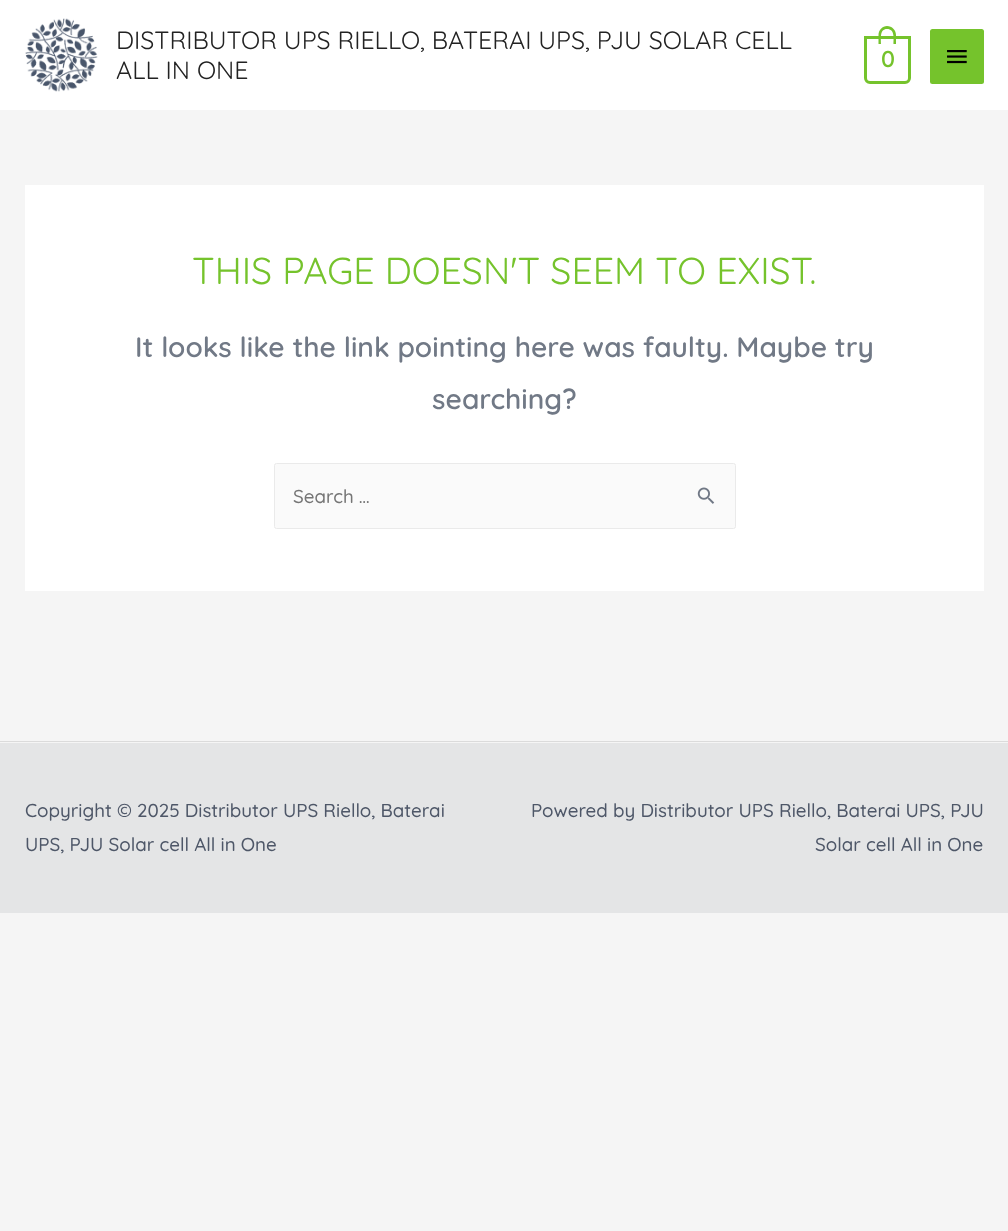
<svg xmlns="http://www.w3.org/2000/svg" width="1008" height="1231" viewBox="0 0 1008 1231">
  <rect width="100%" height="100%" fill="#f5f5f5"/>
  <path d="M0 0h1008v110H0z" fill="#fff"/>
  <image x="25" y="18" width="73" height="74" href="img/1.png"/>
  <path d="M865.5 37.5H909.5V78C909.5 80.5 907.5 82.5 905 82.5H870C867.5 82.5 865.5 80.5 865.5 78Z" fill="none" stroke="#75c32c" stroke-width="3"/>
  <path d="M887 26C892 26 896 30 896 35V44H878.5V35C878.5 30 882.5 26 887 26ZM887 29C895 29 893.5 38.5 893.5 44H881C881 38.5 879.5 29 887 29Z" fill="#75c32c" fill-rule="evenodd"/>
  <rect x="930" y="29" width="54" height="55" rx="2.5" fill="#75c32c"/>
  <image x="947" y="50" width="20" height="14" href="img/2.png"/>
  <path d="M25 185h959v406H25z" fill="#fff"/>
  <rect x="274.5" y="463.5" width="461" height="65" rx="2" fill="#fafafa" stroke="#eaeaea"/>
  <image x="697" y="487" width="18" height="17" href="img/3.png"/>
  <path d="M0 741h1008v1H0z" fill="#dbdbdb"/>
  <path d="M0 743h1008v170H0z" fill="#e4e5e6"/>
  <g font-family="Quicksand" font-size="25" fill="#222">
    <text x="116" y="49">DISTRIBUTOR UPS RIELLO, BATERAI UPS, PJU SOLAR CELL</text>
    <text x="116" y="79">ALL IN ONE</text>
  </g>
  <text x="881" y="67" font-family="Quicksand" font-size="23" font-weight="600" fill="#75c32c">0</text>
  <text x="192" y="284" font-family="Quicksand" font-size="37.5" fill="#75c32c">THIS PAGE DOESN'T SEEM TO EXIST.</text>
  <g font-family="Quicksand" font-size="28.1" font-weight="600" fill="#717986">
    <text x="135" y="357">It looks like the link pointing here was faulty. Maybe try</text>
    <text x="432" y="409">searching?</text>
  </g>
  <text x="293" y="503" font-family="Quicksand" font-size="18.75" font-weight="500" fill="#757575">Search …</text>
  <g font-family="Quicksand" font-size="18.75" font-weight="500" fill="#4e5768">
    <text x="25" y="817">Copyright © 2025 Distributor UPS Riello, Baterai</text>
    <text x="25" y="851">UPS, PJU Solar cell All in One</text>
    <text x="531" y="817">Powered by Distributor UPS Riello, Baterai UPS, PJU</text>
    <text x="815" y="851">Solar cell All in One</text>
  </g>
</svg>
